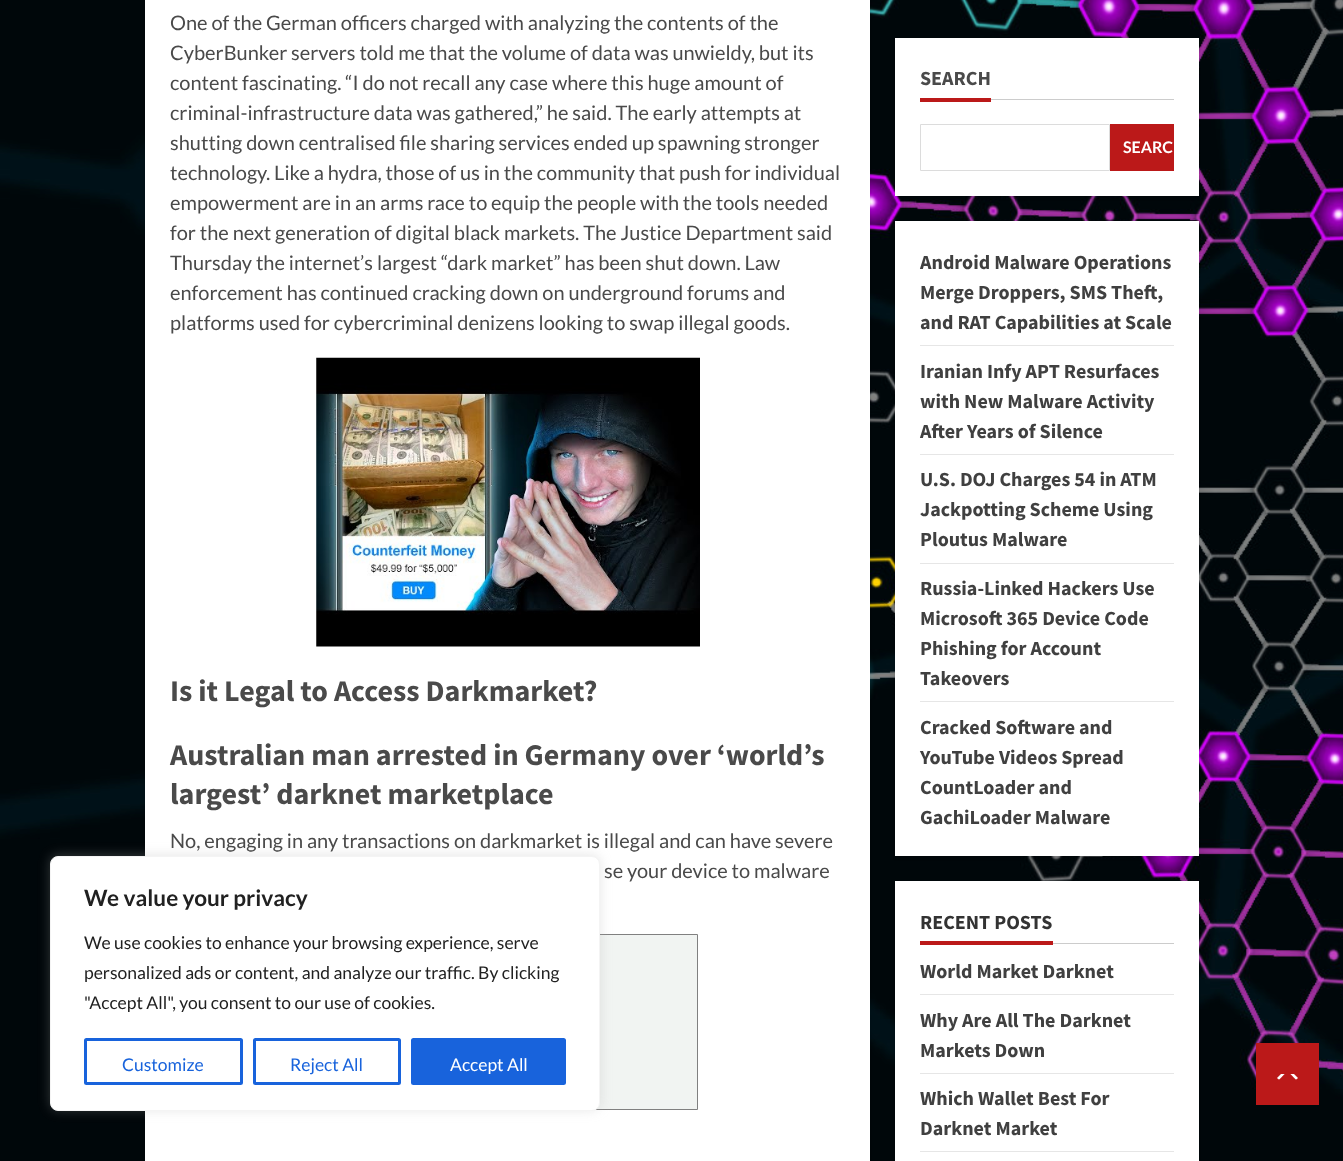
<svg xmlns="http://www.w3.org/2000/svg" width="1343" height="1161" viewBox="0 0 1343 1161">
  <rect width="100%" height="100%" fill="#fff"/>
  <image x="0" y="0" width="1343" height="1161" href="img/1.png"/>
  <path d="M145 -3h725v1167H145z" fill="#00000014" filter="blur(1px)"/>
  <path d="M145 0h725v1161H145z" fill="#fff"/>
  <image x="316" y="357" width="384" height="290" href="img/2.png"/>
  <path d="M597 935h100v174H597z" fill="#f1f4f2"/>
  <path d="M319.5 934.5h378v175H319.5z" fill="none" stroke="#808080"/>
  <path d="M895 40h304v159H895z" fill="#00000014" filter="blur(1px)"/>
  <path d="M895 38h304v158H895z" fill="#fff"/>
  <path d="M920 98h71v4H920z" fill="#bb1919"/>
  <path d="M991 99h183v1H991z" fill="#ccc"/>
  <path d="M920.5 124.5h189v46H920.5z" fill="none" stroke="#dcdcdc"/>
  <path d="M1110 124h64v47H1110z" fill="#bb1919"/>
  <path d="M895 224h304v635H895z" fill="#00000014" filter="blur(1px)"/>
  <path d="M895 221h304v635H895z" fill="#fff"/>
  <path d="M920 345h254v1H920z" fill="#e6e6e6"/>
  <path d="M920 454h254v1H920z" fill="#e6e6e6"/>
  <path d="M920 563h254v1H920z" fill="#e6e6e6"/>
  <path d="M920 701h254v1H920z" fill="#e6e6e6"/>
  <path d="M895 884h304v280H895z" fill="#00000014" filter="blur(1px)"/>
  <path d="M895 881h304v280H895z" fill="#fff"/>
  <path d="M920 941h133v4H920z" fill="#bb1919"/>
  <path d="M1053 943h121v1H1053z" fill="#ccc"/>
  <path d="M920 994h254v1H920z" fill="#e6e6e6"/>
  <path d="M920 1073h254v1H920z" fill="#e6e6e6"/>
  <path d="M920 1151h254v1H920z" fill="#e6e6e6"/>
  <path d="M1256 1043h63v62H1256z" fill="#bb1919"/>
  <path d="M1281 1080H1294C1295.5 1080 1297 1079 1298 1078L1294 1074H1281L1277 1078C1278 1079 1279.5 1080 1281 1080Z" fill="#fff"/>
  <path d="M1300 1084H1275L1287.5 1071Z" fill="#bb1919"/>
  <rect x="50" y="855" width="550" height="255" rx="8" fill="#acabab4d" filter="blur(6px)"/>
  <rect x="50.5" y="856.5" width="549" height="254" rx="7.5" fill="#fff" stroke="#f4f4f4"/>
  <rect x="85.5" y="1039.5" width="156" height="44" rx="1" fill="none" stroke="#1863dc" stroke-width="3"/>
  <rect x="254.5" y="1039.5" width="145" height="44" rx="1" fill="none" stroke="#1863dc" stroke-width="3"/>
  <rect x="412.5" y="1039.5" width="152" height="44" rx="1" fill="#1863dc" stroke="#1863dc" stroke-width="3"/>
  <g font-family="Lato" font-size="20" fill="#4a4a4a">
    <text x="170" y="30">One of the German officers charged with analyzing the contents of the</text>
    <text x="170" y="60">CyberBunker servers told me that the volume of data was unwieldy, but its</text>
    <text x="170" y="90">content fascinating. “I do not recall any case where this huge amount of</text>
    <text x="170" y="120">criminal-infrastructure data was gathered,” he said. The early attempts at</text>
    <text x="170" y="150">shutting down centralised file sharing services ended up spawning stronger</text>
    <text x="170" y="180">technology. Like a hydra, those of us in the community that push for individual</text>
    <text x="170" y="210">empowerment are in an arms race to equip the people with the tools needed</text>
    <text x="170" y="240">for the next generation of digital black markets. The Justice Department said</text>
    <text x="170" y="270">Thursday the internet’s largest “dark market” has been shut down. Law</text>
    <text x="170" y="300">enforcement has continued cracking down on underground forums and</text>
    <text x="170" y="330">platforms used for cybercriminal denizens looking to swap illegal goods.</text>
  </g>
  <g font-family="Source Sans Pro" font-size="30" font-weight="bold" fill="#4a4a4a">
    <text x="170" y="701">Is it Legal to Access Darkmarket?</text>
    <text x="170" y="765">Australian man arrested in Germany over ‘world’s</text>
    <text x="170" y="804">largest’ darknet marketplace</text>
  </g>
  <g font-family="Lato" font-size="20" fill="#4a4a4a">
    <text x="170" y="848">No, engaging in any transactions on darkmarket is illegal and can have severe</text>
    <text x="604" y="878">se your device to malware</text>
  </g>
  <text x="920" y="85" font-family="Source Sans Pro" font-size="20" font-weight="bold" fill="#4a4a4a">SEARCH</text>
  <text x="1123" y="153" font-family="Lato" font-size="16" font-weight="bold" fill="#fff">SEARC</text>
  <g font-family="Source Sans Pro" font-size="20" font-weight="bold" fill="#404040">
    <text x="920" y="269">Android Malware Operations</text>
    <text x="920" y="299">Merge Droppers, SMS Theft,</text>
    <text x="920" y="329">and RAT Capabilities at Scale</text>
    <text x="920" y="378">Iranian Infy APT Resurfaces</text>
    <text x="920" y="408">with New Malware Activity</text>
    <text x="920" y="438">After Years of Silence</text>
    <text x="920" y="486">U.S. DOJ Charges 54 in ATM</text>
    <text x="920" y="516">Jackpotting Scheme Using</text>
    <text x="920" y="546">Ploutus Malware</text>
    <text x="920" y="595">Russia-Linked Hackers Use</text>
    <text x="920" y="625">Microsoft 365 Device Code</text>
    <text x="920" y="655">Phishing for Account</text>
    <text x="920" y="685">Takeovers</text>
    <text x="920" y="734">Cracked Software and</text>
    <text x="920" y="764">YouTube Videos Spread</text>
    <text x="920" y="794">CountLoader and</text>
    <text x="920" y="824">GachiLoader Malware</text>
  </g>
  <text x="920" y="929" font-family="Source Sans Pro" font-size="20" font-weight="bold" fill="#333">RECENT POSTS</text>
  <g font-family="Source Sans Pro" font-size="20" font-weight="bold" fill="#404040">
    <text x="920" y="978">World Market Darknet</text>
    <text x="920" y="1027">Why Are All The Darknet</text>
    <text x="920" y="1057">Markets Down</text>
    <text x="920" y="1105">Which Wallet Best For</text>
    <text x="920" y="1135">Darknet Market</text>
  </g>
  <text x="84" y="906" font-family="Lato" font-size="22.5" font-weight="bold" fill="#212121">We value your privacy</text>
  <g font-family="Lato" font-size="17.5" fill="#212121">
    <text x="84" y="949">We use cookies to enhance your browsing experience, serve</text>
    <text x="84" y="979">personalized ads or content, and analyze our traffic. By clicking</text>
    <text x="84" y="1009">"Accept All", you consent to our use of cookies.</text>
  </g>
  <g font-family="Lato" font-size="17.5" fill="#1863dc">
    <text x="122" y="1071">Customize</text>
    <text x="290" y="1071">Reject All</text>
  </g>
  <text x="450" y="1071" font-family="Lato" font-size="17.5" fill="#fff">Accept All</text>
</svg>
